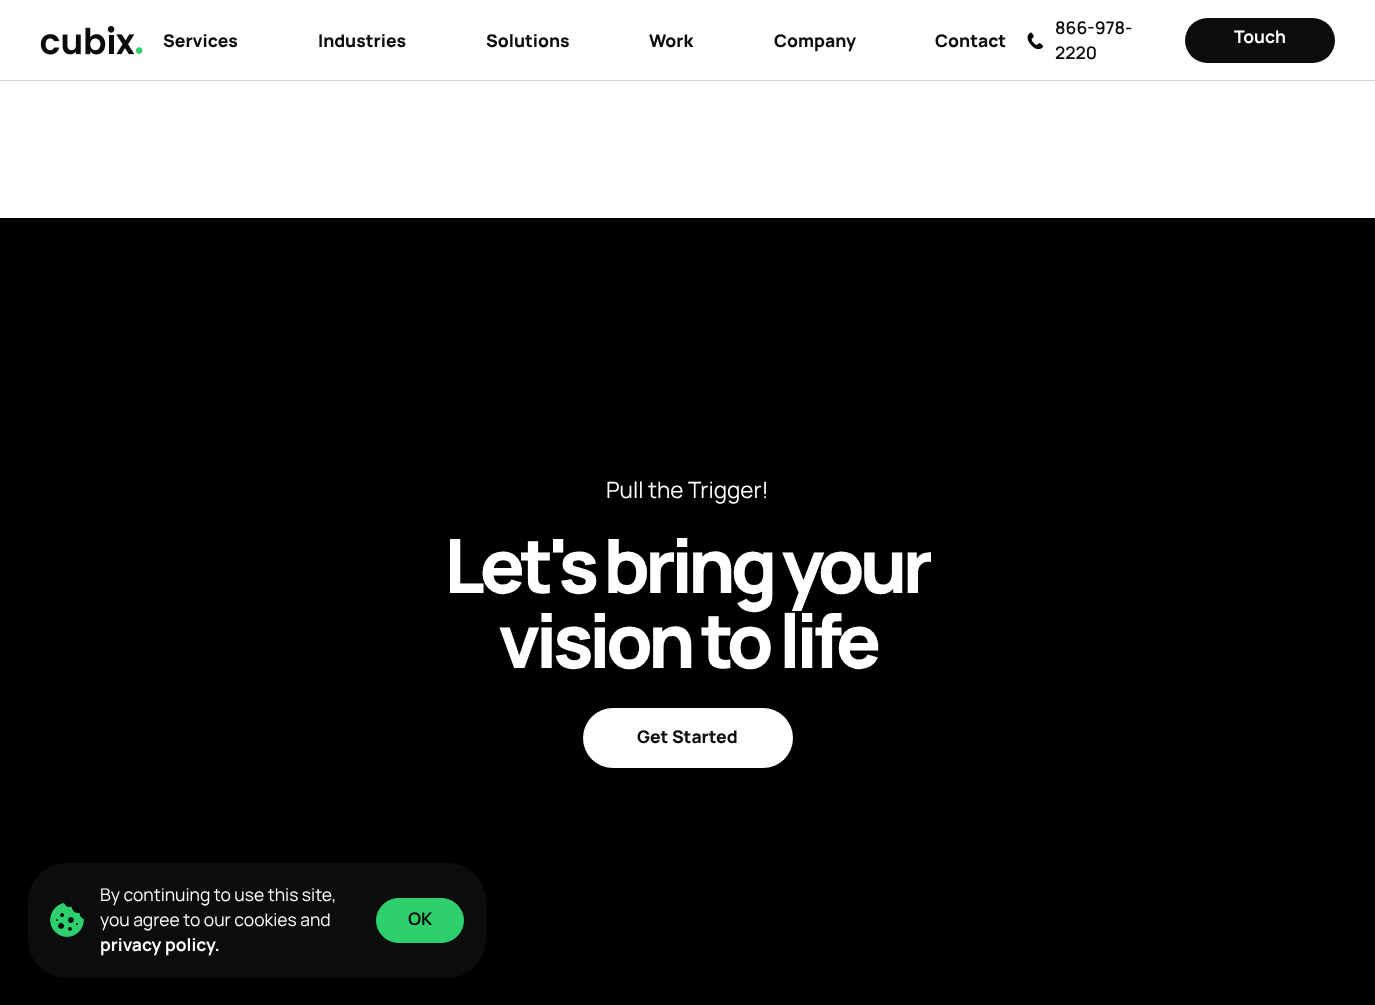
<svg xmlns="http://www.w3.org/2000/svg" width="1375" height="1005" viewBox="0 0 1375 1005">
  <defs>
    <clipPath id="clip1"><path d="M444 518h487v160H444z"/></clipPath>
  </defs>
  <rect width="100%" height="100%" fill="#fff"/>
  <path d="M0 80h1375v1H0z" fill="#d7d7d7"/>
  <image x="40" y="26" width="103" height="29" href="img/1.png"/>
  <image x="1027" y="32" width="17" height="17" href="img/2.png"/>
  <rect x="1185" y="18" width="150" height="45" rx="22.5" fill="#0b0c0d"/>
  <path d="M0 218h1375v787H0z" fill="#000"/>
  <rect x="583" y="708" width="210" height="60" rx="30" fill="#fff"/>
  <rect x="28" y="863" width="458" height="115" rx="38" fill="#0b0c0d"/>
  <image x="50" y="903" width="34" height="34" href="img/3.png"/>
  <rect x="376.5" y="898.5" width="87" height="44" rx="22" fill="#2ed06e" stroke="#2ed06e"/>
  <g font-family="Manrope" font-size="17.5" font-weight="800" fill="#0b0c0d">
    <text x="163" y="47">Services</text>
    <text x="318" y="47">Industries</text>
    <text x="486" y="47">Solutions</text>
    <text x="649" y="47">Work</text>
    <text x="774" y="47">Company</text>
    <text x="935" y="47">Contact</text>
  </g>
  <g font-family="Manrope" font-size="17.5" font-weight="600" fill="#0b0c0d">
    <text x="1055" y="34">866-978-</text>
    <text x="1055" y="59">2220</text>
  </g>
  <text x="1234" y="43" font-family="Manrope" font-size="17.5" font-weight="bold" fill="#fff">Touch</text>
  <text x="606" y="498" font-family="Manrope" font-size="22.5" fill="#fff">Pull the Trigger!</text>
  <g clip-path="url(#clip1)">
    <text x="444" y="593" word-spacing="-1" font-family="Manrope" font-size="75" font-weight="800" letter-spacing="-5" fill="#fff">Let's bring your</text>
  </g>
  <text x="498" y="668" font-family="Manrope" font-size="75" font-weight="800" letter-spacing="-5" fill="#fff">vision to life</text>
  <text x="637" y="743" font-family="Manrope" font-size="17.5" font-weight="800" fill="#0b0c0d">Get Started</text>
  <g font-family="Manrope" font-size="17.5" fill="#fff">
    <text x="100" y="901">By continuing to use this site,</text>
    <text x="100" y="926">you agree to our cookies and</text>
  </g>
  <text x="100" y="951" font-family="Manrope" font-size="17.5" font-weight="bold" fill="#fff">privacy policy.</text>
  <text x="408" y="925" font-family="Manrope" font-size="17.5" font-weight="bold" fill="#0b0c0d">OK</text>
</svg>
